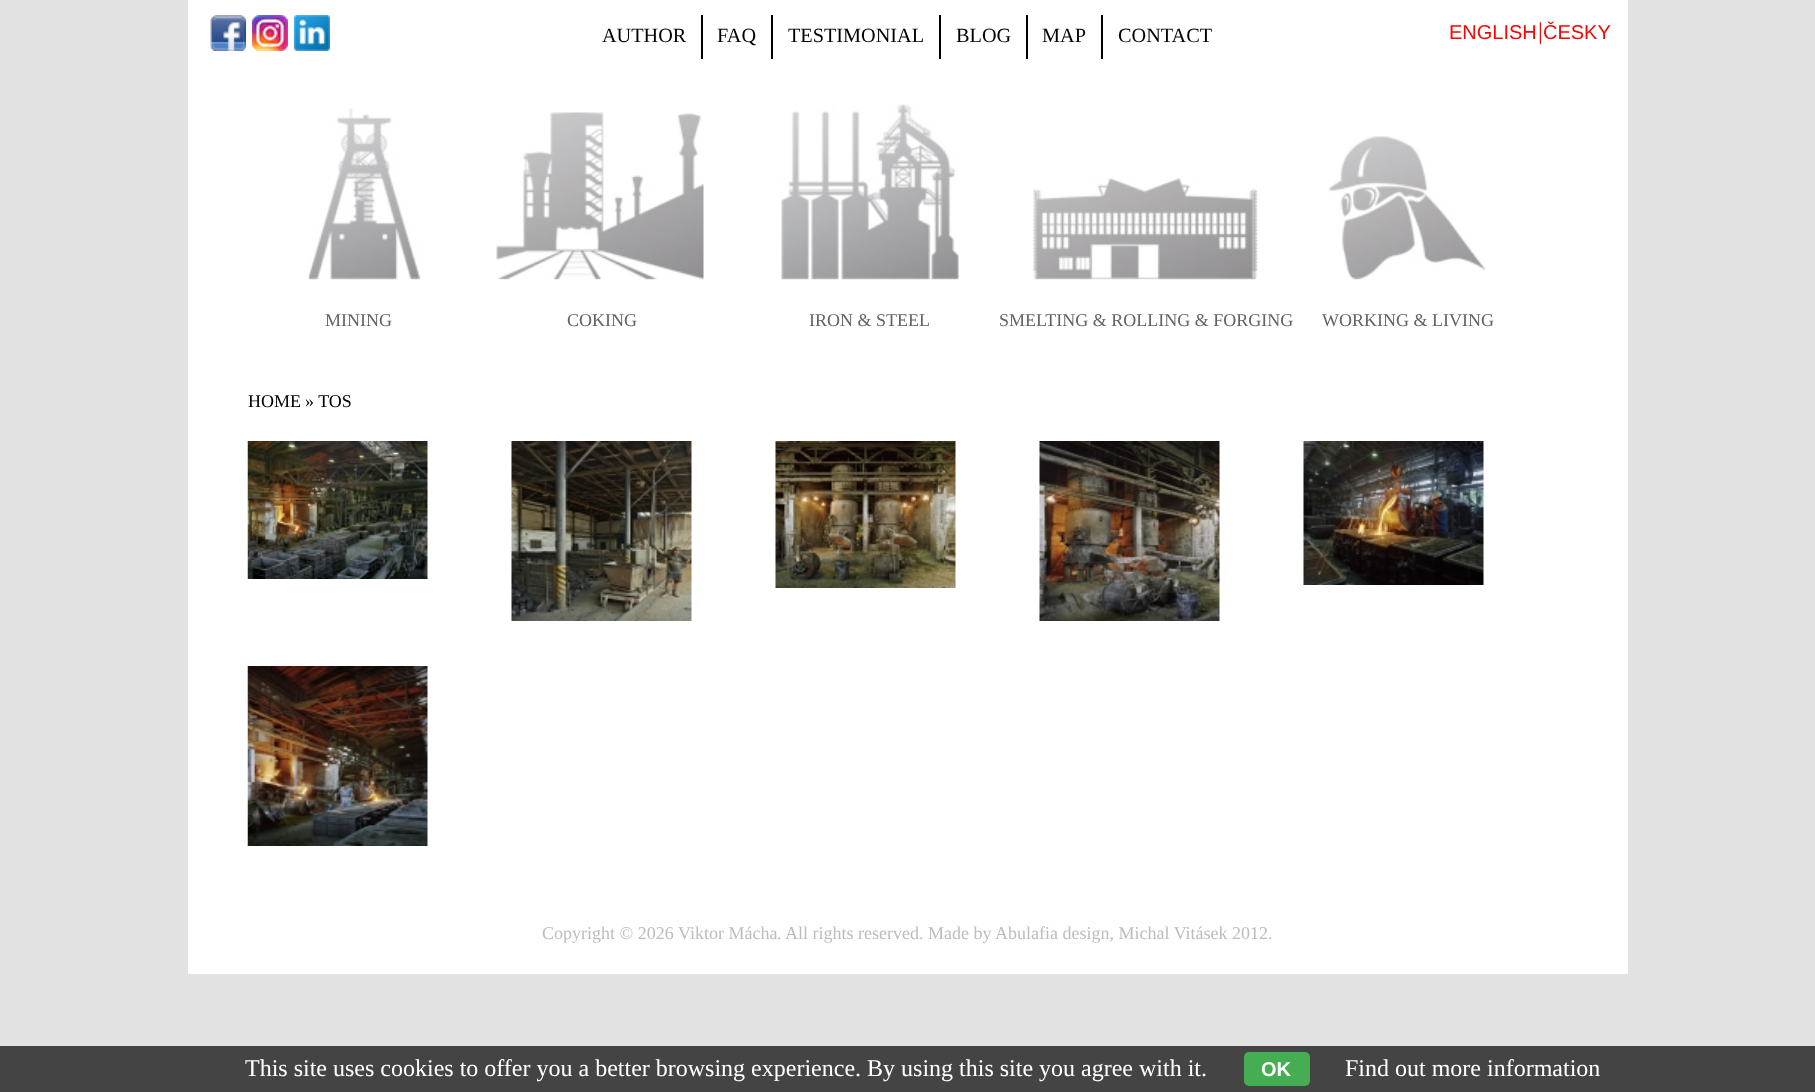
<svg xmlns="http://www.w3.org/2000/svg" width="1815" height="1092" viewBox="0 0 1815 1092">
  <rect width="100%" height="100%" fill="#e2e2e2"/>
  <path d="M188 0h1440v974H188z" fill="#fff"/>
  <image x="210" y="15" width="36" height="36" href="img/1.png"/>
  <image x="252" y="15" width="36" height="36" href="img/2.png"/>
  <image x="294" y="15" width="36" height="36" href="img/3.png"/>
  <path d="M701 15h2v44H701z" fill="#000"/>
  <path d="M771 15h2v44H771z" fill="#000"/>
  <path d="M939 15h2v44H939z" fill="#000"/>
  <path d="M1026 15h2v44H1026z" fill="#000"/>
  <path d="M1101 15h2v44H1101z" fill="#000"/>
  <image x="308" y="108" width="113" height="172" href="img/4.png"/>
  <image x="496" y="112" width="208" height="168" href="img/5.png"/>
  <image x="781" y="104" width="178" height="176" href="img/6.png"/>
  <image x="1033" y="178" width="225" height="102" href="img/7.png"/>
  <image x="1328" y="136" width="158" height="144" href="img/8.png"/>
  <image x="247" y="441" width="181" height="138" href="img/9.png"/>
  <image x="511" y="441" width="181" height="180" href="img/10.png"/>
  <image x="775" y="441" width="181" height="147" href="img/11.png"/>
  <image x="1039" y="441" width="181" height="180" href="img/12.png"/>
  <image x="1303" y="441" width="181" height="144" href="img/13.png"/>
  <image x="247" y="666" width="181" height="180" href="img/14.png"/>
  <path d="M0 1046h1815v46H0z" fill="#444"/>
  <rect x="1244" y="1052" width="66" height="34" rx="5" fill="#45ae52"/>
  <g font-family="Liberation Serif" font-size="20.25" fill="#000">
    <text x="602" y="42">AUTHOR</text>
    <text x="717" y="42">FAQ</text>
    <text x="788" y="42">TESTIMONIAL</text>
    <text x="956" y="42">BLOG</text>
    <text x="1042" y="42">MAP</text>
    <text x="1118" y="42">CONTACT</text>
  </g>
  <text x="1449" y="39" font-family="Liberation Sans" font-size="20" fill="#ff0200">ENGLISH</text>
  <text x="1538" y="39" font-family="Liberation Serif" font-size="24" fill="#ff0200">|</text>
  <text x="1543" y="39" font-family="Liberation Sans" font-size="20" fill="#ff0200">ČESKY</text>
  <g font-family="Liberation Serif" font-size="18" fill="#636365">
    <text x="325" y="326">MINING</text>
    <text x="567" y="326">COKING</text>
    <text x="809" y="326">IRON &amp; STEEL</text>
    <text x="999" y="326">SMELTING &amp; ROLLING &amp; FORGING</text>
    <text x="1322" y="326">WORKING &amp; LIVING</text>
  </g>
  <g font-family="Liberation Serif" font-size="18" fill="#000">
    <text x="248" y="407">HOME</text>
    <text x="305" y="407">» TOS</text>
  </g>
  <g font-family="Liberation Serif" font-size="18" fill="#bcbcbc">
    <text x="542" y="939">Copyright © 2026</text>
    <text x="678" y="939">Viktor Mácha</text>
    <text x="777" y="939">. All rights reserved. Made by</text>
    <text x="995" y="939">Abulafia design, Michal Vitásek 2012.</text>
  </g>
  <text x="245" y="1076" font-family="Liberation Serif" font-size="24" fill="#fff">This site uses cookies to offer you a better browsing experience. By using this site you agree with it.</text>
  <text x="1261" y="1076" font-family="Liberation Sans" font-size="20" font-weight="bold" fill="#fff">OK</text>
  <text x="1345" y="1076" font-family="Liberation Serif" font-size="24" fill="#fff">Find out more information</text>
</svg>
